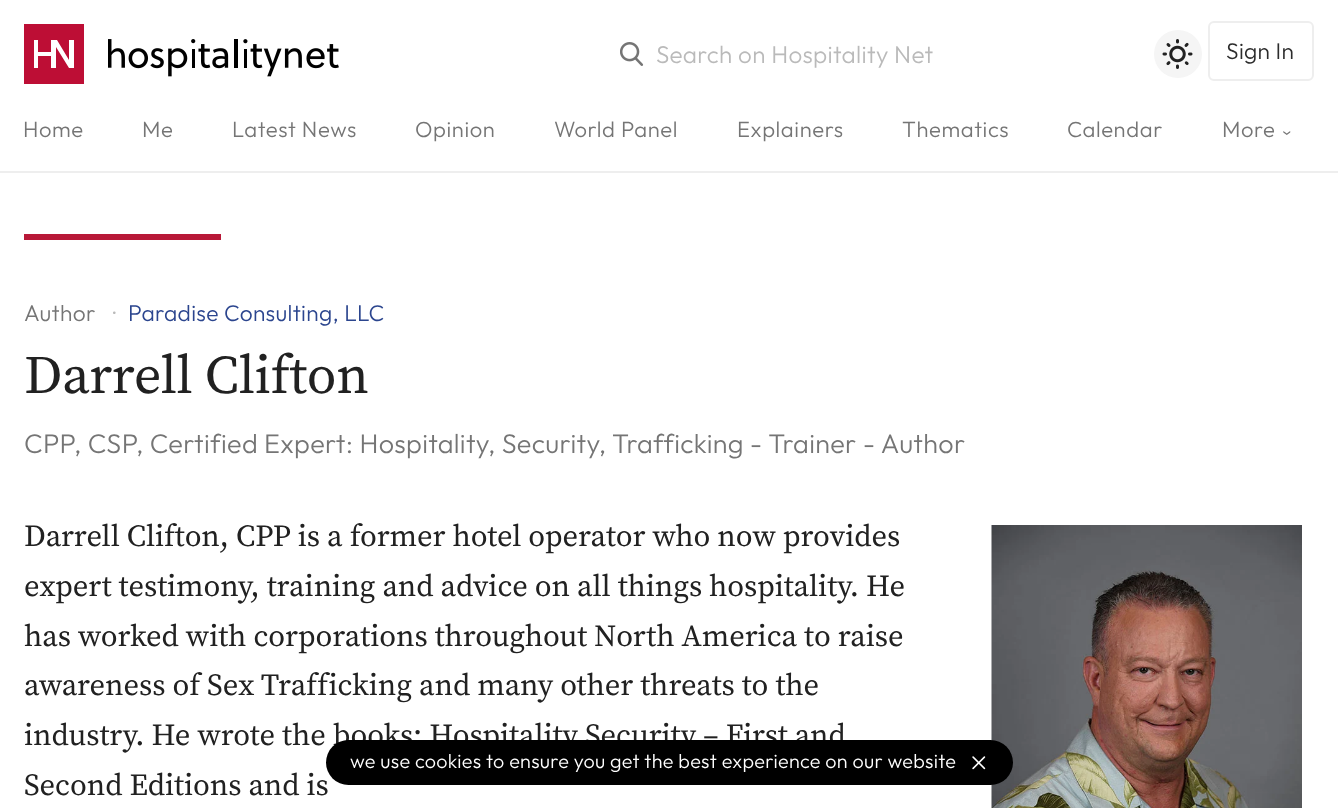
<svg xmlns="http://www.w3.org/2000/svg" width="1338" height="808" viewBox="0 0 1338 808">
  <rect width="100%" height="100%" fill="#fff"/>
  <path d="M0 171h1338v2H0z" fill="#eee"/>
  <path d="M24 24h60v60H24z" fill="#bd0e35"/>
  <image x="108" y="39" width="231" height="38" href="img/1.png"/>
  <path d="M34 68H38V56H51V68H56V47L69 68H74V40H69V60L57 40H51V52H38V40H34Z" fill="#fff"/>
  <image x="620" y="42" width="24" height="24" href="img/2.png"/>
  <circle cx="1178" cy="54" r="24" fill="#f5f5f5"/>
  <image x="1162" y="39" width="31" height="30" href="img/3.png"/>
  <rect x="1209" y="22" width="104" height="58" rx="5" fill="none" stroke="#eee" stroke-width="2"/>
  <path d="M24 234h197v6H24z" fill="#b81838"/>
  <image x="991" y="525" width="311" height="283" href="img/4.png"/>
  <text x="656" y="63" font-family="Outfit" font-size="24.25" font-weight="300" letter-spacing="0.3" fill="#bababa">Search on Hospitality Net</text>
  <text x="1226" y="59" font-family="Outfit" font-size="22.75" font-weight="300" letter-spacing="0.3" fill="#2c2c2c">Sign In</text>
  <g font-family="Outfit" font-size="22" font-weight="300" letter-spacing="0.6" fill="#757575">
    <text x="23" y="137">Home</text>
    <text x="142" y="137">Me</text>
    <text x="232" y="137">Latest News</text>
    <text x="415" y="137">Opinion</text>
    <text x="554" y="137">World Panel</text>
    <text x="737" y="137">Explainers</text>
    <text x="902" y="137">Thematics</text>
    <text x="1067" y="137">Calendar</text>
    <text x="1222" y="137">More</text>
    <text x="1292" y="136" transform="rotate(-90 1292 136)">‹</text>
  </g>
  <text x="24" y="321" font-family="Outfit" font-size="22.75" font-weight="300" letter-spacing="0.3" fill="#757575">Author</text>
  <text x="113" y="321" font-family="Outfit" font-size="22.75" font-weight="300" letter-spacing="0.3" fill="#bababa">·</text>
  <text x="128" y="321" font-family="Outfit" font-size="22.75" font-weight="300" letter-spacing="0.3" fill="#2b458e">Paradise Consulting, LLC</text>
  <text x="24" y="393" font-family="Source Serif Pro" font-size="54" letter-spacing="-0.2" fill="#212121">Darrell Clifton</text>
  <text x="24" y="453" font-family="Outfit" font-size="27" font-weight="300" letter-spacing="0.3" fill="#757575">CPP, CSP, Certified Expert: Hospitality, Security, Trafficking - Trainer - Author</text>
  <g font-family="Source Serif Pro" font-size="30.6" letter-spacing="-0.08" fill="#212121">
    <text x="24" y="546">Darrell Clifton, CPP is a former hotel operator who now provides</text>
    <text x="24" y="596">expert testimony, training and advice on all things</text>
    <text x="709" y="596">hospitality. He</text>
    <text x="24" y="646">has worked with corporations throughout North America to raise</text>
    <text x="24" y="695">awareness of Sex Trafficking and many other threats to the</text>
    <text x="24" y="745">industry. He wrote the books: Hospitality Security – First and</text>
    <text x="24" y="795">Second Editions and is</text>
  </g>
  <rect x="326" y="740" width="687" height="45" rx="22.5" fill="#000"/>
  <text x="350" y="768" font-family="Outfit" font-size="19.8" font-weight="300" letter-spacing="0.3" fill="#fff">we use cookies to ensure you get the best experience on our website</text>
  <image x="972" y="756" width="14" height="14" href="img/5.png"/>
</svg>
